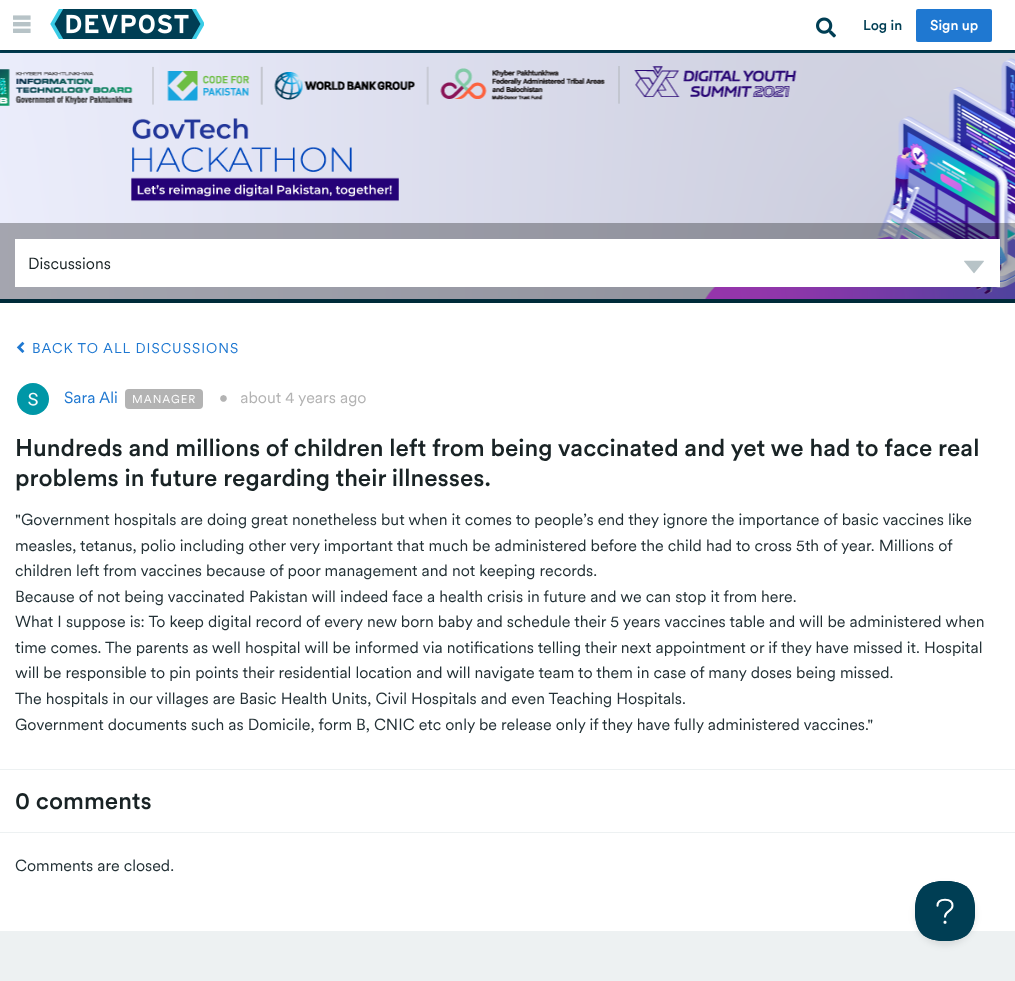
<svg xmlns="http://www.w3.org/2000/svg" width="1015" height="981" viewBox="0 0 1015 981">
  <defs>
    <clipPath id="clip1"><path d="M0 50h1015v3H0z"/></clipPath>
  </defs>
  <rect width="100%" height="100%" fill="#fff"/>
  <path d="M0 50h1015v253H0z" fill="#003e54"/>
  <image x="0" y="53" width="1015" height="246" href="img/4.png"/>
  <g clip-path="url(#clip1)">
    <path d="M0 1h1015v50H0z" fill="#0000004d" filter="blur(1.5px)"/>
  </g>
  <image x="13" y="15" width="18" height="18" href="img/1.png"/>
  <image x="50" y="9" width="154" height="30" href="img/2.png"/>
  <image x="816" y="17" width="20" height="21" href="img/3.png"/>
  <rect x="916" y="9" width="76" height="33" rx="2" fill="#1f78d1"/>
  <image x="131" y="118" width="268" height="84" href="img/5.png"/>
  <path d="M0 223h1015v80H0z" fill="#0000004d"/>
  <path d="M15 239h985v48H15z" fill="#fff"/>
  <image x="964" y="260" width="20" height="14" href="img/6.png"/>
  <image x="16" y="341" width="9" height="12" href="img/7.png"/>
  <image x="17" y="383" width="32" height="32" href="img/8.png"/>
  <rect x="125" y="389" width="78" height="20" rx="4" fill="#b3b3b3"/>
  <path d="M0 769h1015v1H0z" fill="#edf1f2"/>
  <path d="M0 832h1015v1H0z" fill="#edf1f2"/>
  <path d="M0 931h1015v50H0z" fill="#edf1f2"/>
  <rect x="915" y="885" width="60" height="60" rx="30" fill="#0000001a" filter="blur(3.5px)"/>
  <image x="915" y="881" width="60" height="60" href="img/9.png"/>
  <text x="863" y="30" font-family="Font" font-size="14" font-weight="500" fill="#003e54">Log in</text>
  <text x="930" y="30" font-family="Font" font-size="14" font-weight="500" fill="#fff">Sign up</text>
  <text x="28" y="269" font-family="Font" font-size="16" fill="#192325">Discussions</text>
  <text x="32" y="353" font-family="Font" font-size="14" letter-spacing="1" fill="#1f78d1">BACK TO ALL DISCUSSIONS</text>
  <text x="64" y="403" font-family="Font" font-size="16" fill="#1f78d1">Sara Ali</text>
  <text x="132" y="403" font-family="Font" font-size="11.25" letter-spacing="1" fill="#fff">MANAGER</text>
  <text x="219" y="403" font-family="Font" font-size="16" fill="#b3b3b3" xml:space="preserve">•   about 4 years ago</text>
  <g font-family="Font" font-size="24" font-weight="500" fill="#192325">
    <text x="15" y="456">Hundreds and millions of children left from being vaccinated and yet we had to face real</text>
    <text x="15" y="486">problems in future regarding their illnesses.</text>
  </g>
  <g font-family="Font" font-size="16" fill="#233136">
    <text x="15" y="525">"Government hospitals are doing great nonetheless but when it comes to people’s end they ignore the importance of basic vaccines like</text>
    <text x="15" y="551">measles, tetanus, polio including other very important that much be administered before the child had to cross 5th of year. Millions of</text>
    <text x="15" y="576">children left from vaccines because of poor management and not keeping records.</text>
    <text x="15" y="602">Because of not being vaccinated Pakistan will indeed face a health crisis in future and we can stop it from here.</text>
    <text x="15" y="627">What I suppose is: To keep digital record of every new born baby and schedule their 5 years vaccines table and will be administered when</text>
    <text x="15" y="653">time comes. The parents as well hospital will be informed via notifications telling their next appointment or if they have missed it. Hospital</text>
    <text x="15" y="678">will be responsible to pin points their residential location and will navigate team to them in case of many doses being missed.</text>
    <text x="15" y="704">The hospitals in our villages are Basic Health Units, Civil Hospitals and even Teaching Hospitals.</text>
    <text x="15" y="730">Government documents such as Domicile, form B, CNIC etc only be release only if they have fully administered vaccines."</text>
  </g>
  <text x="15" y="809" font-family="Font" font-size="24" font-weight="500" fill="#192325">0 comments</text>
  <text x="15" y="871" font-family="Font" font-size="16" fill="#233136">Comments are closed.</text>
</svg>
